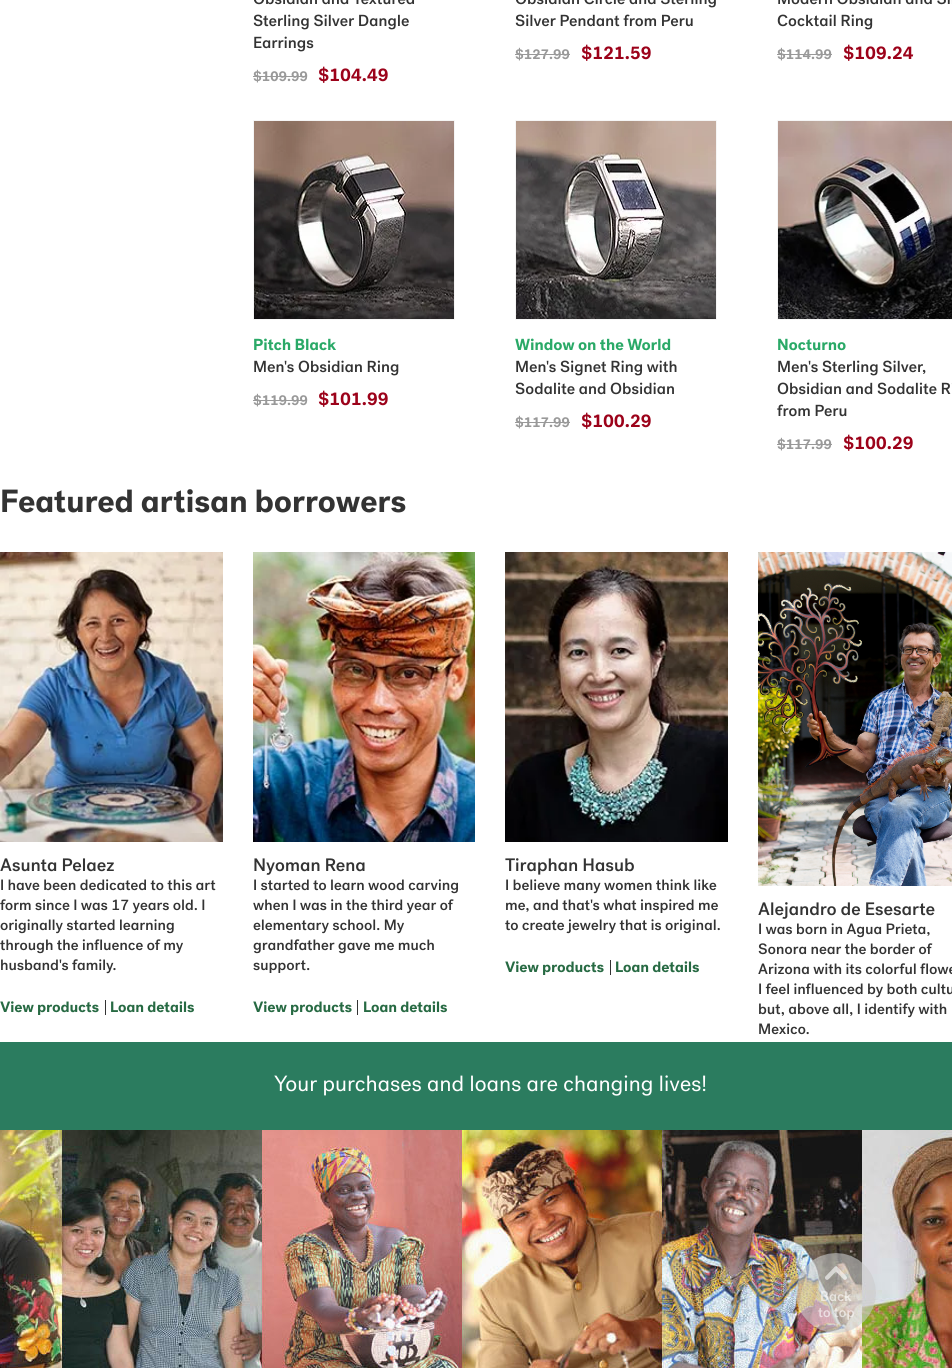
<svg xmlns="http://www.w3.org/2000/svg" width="952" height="1368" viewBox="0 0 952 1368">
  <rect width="100%" height="100%" fill="#fff"/>
  <image x="254" y="0" width="161" height="5" href="img/1.png"/>
  <image x="253" y="14" width="156" height="16" href="img/2.png"/>
  <image x="254" y="36" width="60" height="16" href="img/3.png"/>
  <image x="253" y="69" width="55" height="14" href="img/4.png"/>
  <image x="318" y="66" width="70" height="17" href="img/5.png"/>
  <path d="M253 76h54v1H253z" fill="#999"/>
  <image x="516" y="0" width="200" height="8" href="img/6.png"/>
  <image x="515" y="14" width="178" height="13" href="img/7.png"/>
  <image x="515" y="47" width="55" height="14" href="img/8.png"/>
  <image x="581" y="44" width="70" height="17" href="img/9.png"/>
  <path d="M515 54h55v1H515z" fill="#999"/>
  <image x="778" y="0" width="174" height="5" href="img/10.png"/>
  <image x="777" y="14" width="96" height="16" href="img/11.png"/>
  <image x="777" y="47" width="55" height="14" href="img/12.png"/>
  <image x="843" y="44" width="71" height="17" href="img/13.png"/>
  <path d="M777 54h55v1H777z" fill="#999"/>
  <path d="M253.5 120.5h201v199H253.5z" fill="none" stroke="#f5f5f5"/>
  <image x="254" y="121" width="200" height="198" href="img/14.png"/>
  <image x="254" y="338" width="82" height="13" href="img/15.png"/>
  <image x="254" y="360" width="145" height="16" href="img/16.png"/>
  <image x="253" y="393" width="55" height="14" href="img/17.png"/>
  <image x="318" y="390" width="70" height="17" href="img/18.png"/>
  <path d="M253 400h54v1H253z" fill="#999"/>
  <path d="M515.5 120.5h201v199H515.5z" fill="none" stroke="#f5f5f5"/>
  <image x="516" y="121" width="200" height="198" href="img/19.png"/>
  <image x="515" y="338" width="156" height="13" href="img/20.png"/>
  <image x="516" y="360" width="161" height="16" href="img/21.png"/>
  <image x="515" y="382" width="159" height="13" href="img/22.png"/>
  <image x="515" y="415" width="55" height="14" href="img/23.png"/>
  <image x="581" y="412" width="70" height="17" href="img/24.png"/>
  <path d="M515 422h55v1H515z" fill="#999"/>
  <path d="M777.5 120.5h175v199H777.5z" fill="none" stroke="#f5f5f5"/>
  <image x="778" y="121" width="174" height="198" href="img/25.png"/>
  <image x="778" y="338" width="68" height="13" href="img/26.png"/>
  <image x="778" y="360" width="148" height="16" href="img/27.png"/>
  <image x="777" y="382" width="175" height="13" href="img/28.png"/>
  <image x="777" y="404" width="70" height="13" href="img/29.png"/>
  <image x="777" y="437" width="55" height="14" href="img/23.png"/>
  <image x="843" y="434" width="70" height="17" href="img/24.png"/>
  <path d="M777 444h55v1H777z" fill="#999"/>
  <image x="2" y="489" width="404" height="24" href="img/30.png"/>
  <image x="0" y="552" width="223" height="290" href="img/31.png"/>
  <image x="0" y="858" width="114" height="14" href="img/32.png"/>
  <image x="1" y="879" width="215" height="12" href="img/33.png"/>
  <image x="0" y="899" width="205" height="15" href="img/34.png"/>
  <image x="0" y="919" width="174" height="15" href="img/35.png"/>
  <image x="0" y="939" width="183" height="15" href="img/36.png"/>
  <image x="1" y="959" width="115" height="15" href="img/37.png"/>
  <image x="0" y="1001" width="99" height="14" href="img/38.png"/>
  <path d="M105 1000h1v15H105z" fill="#333"/>
  <image x="111" y="1001" width="83" height="12" href="img/39.png"/>
  <image x="253" y="552" width="222" height="290" href="img/40.png"/>
  <image x="254" y="858" width="111" height="17" href="img/41.png"/>
  <image x="254" y="879" width="204" height="15" href="img/42.png"/>
  <image x="253" y="899" width="201" height="15" href="img/43.png"/>
  <image x="253" y="919" width="151" height="15" href="img/44.png"/>
  <image x="253" y="939" width="181" height="15" href="img/45.png"/>
  <image x="253" y="960" width="57" height="13" href="img/46.png"/>
  <image x="253" y="1001" width="99" height="14" href="img/38.png"/>
  <path d="M357 1000h1v15H357z" fill="#333"/>
  <image x="364" y="1001" width="83" height="12" href="img/39.png"/>
  <image x="505" y="552" width="223" height="290" href="img/47.png"/>
  <image x="505" y="858" width="129" height="17" href="img/48.png"/>
  <image x="506" y="879" width="211" height="15" href="img/49.png"/>
  <image x="506" y="899" width="212" height="14" href="img/50.png"/>
  <image x="505" y="919" width="215" height="15" href="img/51.png"/>
  <image x="505" y="961" width="99" height="14" href="img/38.png"/>
  <path d="M610 960h1v15H610z" fill="#333"/>
  <image x="616" y="961" width="83" height="12" href="img/39.png"/>
  <image x="758" y="552" width="194" height="334" href="img/52.png"/>
  <image x="758" y="902" width="177" height="17" href="img/53.png"/>
  <image x="759" y="923" width="171" height="15" href="img/54.png"/>
  <image x="758" y="943" width="175" height="12" href="img/55.png"/>
  <image x="758" y="963" width="194" height="12" href="img/56.png"/>
  <image x="759" y="983" width="193" height="15" href="img/57.png"/>
  <image x="759" y="1003" width="188" height="15" href="img/58.png"/>
  <image x="759" y="1023" width="50" height="12" href="img/59.png"/>
  <path d="M0 1042h952v88H0z" fill="#2b7c5f"/>
  <image x="274" y="1075" width="432" height="21" href="img/60.png"/>
  <image x="0" y="1130" width="952" height="238" href="img/61.png"/>
  <circle cx="836" cy="1293" r="40" fill="#cccccc99"/>
  <image x="825" y="1266" width="22" height="14" href="img/62.png"/>
  <image x="821" y="1291" width="31" height="11" href="img/63.png"/>
  <image x="818" y="1308" width="36" height="12" href="img/64.png"/>
</svg>
